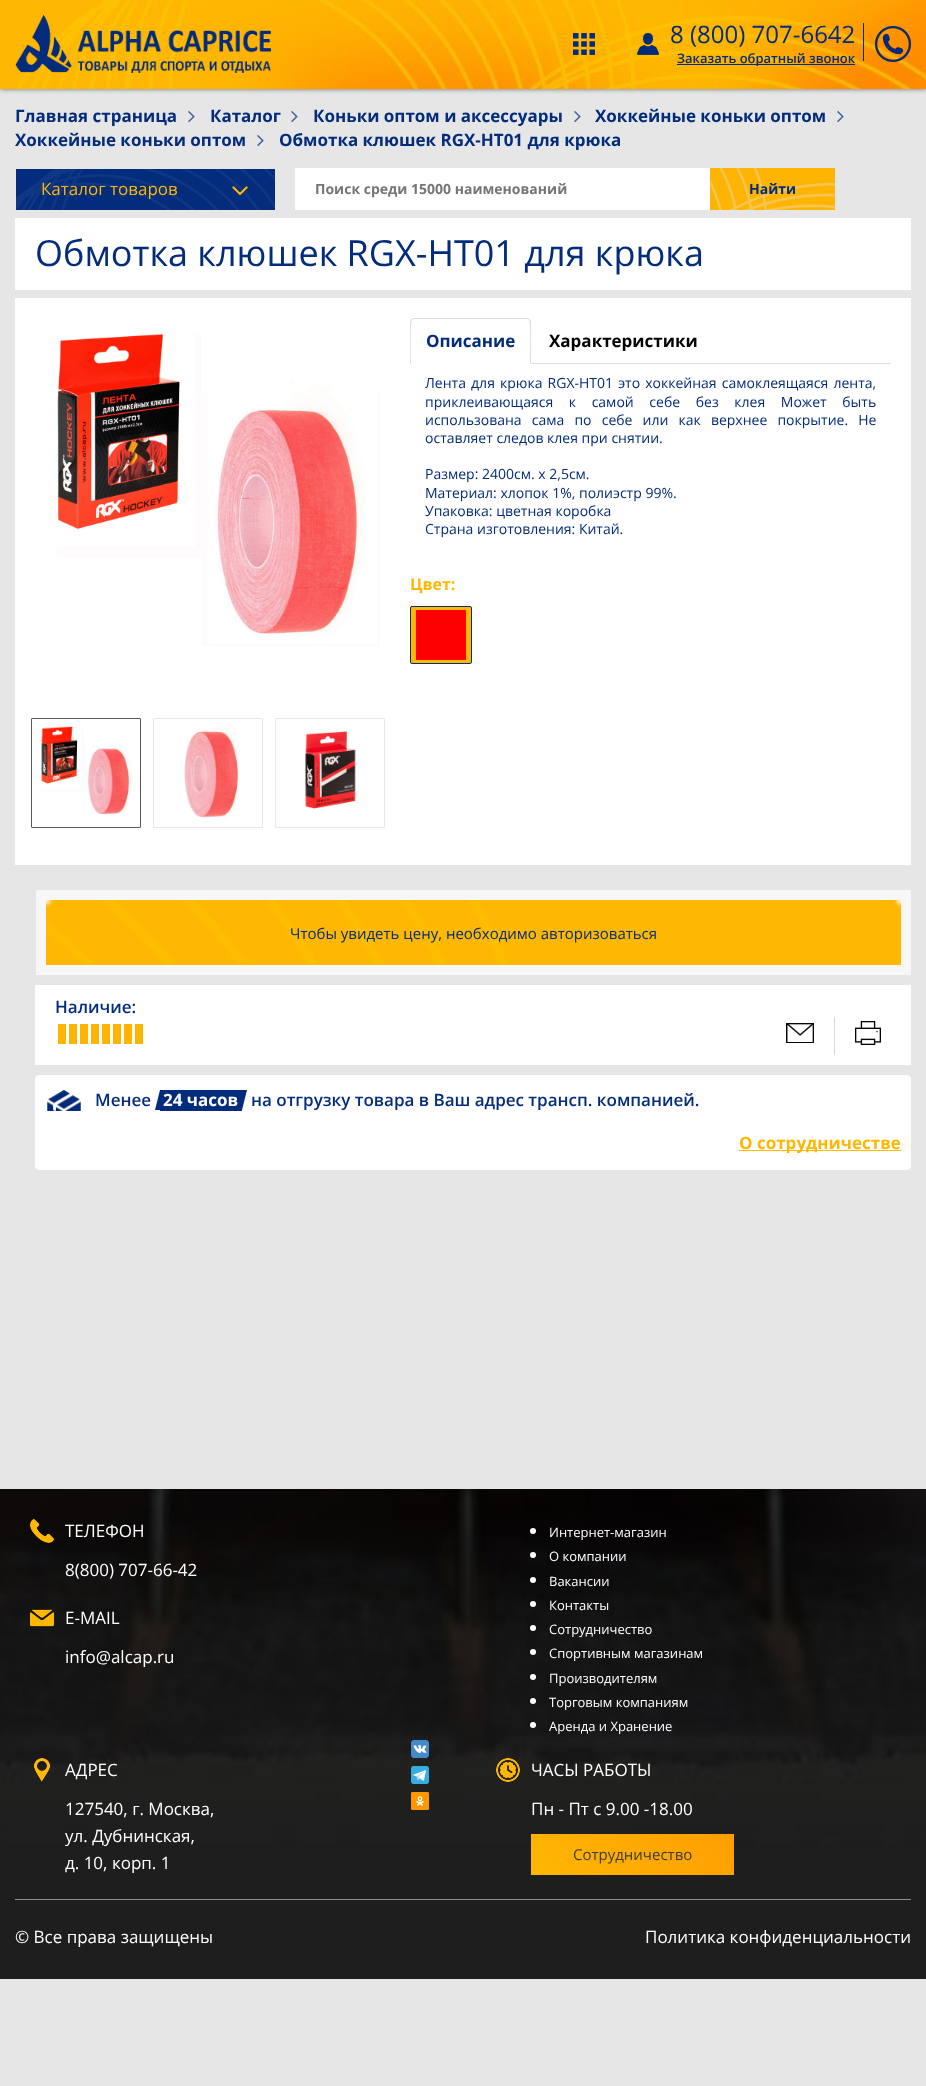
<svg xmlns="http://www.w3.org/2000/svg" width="926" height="2086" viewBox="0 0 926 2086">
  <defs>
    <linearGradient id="g1" gradientUnits="userSpaceOnUse" x1="694" y1="1794" x2="572" y2="1916"><stop offset="0" stop-color="#fe9e02"/><stop offset="1" stop-color="#feb703"/></linearGradient>
  </defs>
  <rect width="100%" height="100%" fill="#e6e6e6"/>
  <path d="M0 0h926v89H0z" fill="#696969" filter="blur(2.5px)"/>
  <image x="0" y="0" width="926" height="89" href="img/1.png"/>
  <image x="15" y="15" width="256" height="58" href="img/2.png"/>
  <image x="573" y="33" width="22" height="22" href="img/3.png"/>
  <image x="637" y="33" width="22" height="22" href="img/4.png"/>
  <path d="M863 23h1v38H863z" fill="#032c7c"/>
  <path d="M677 64h178v1H677z" fill="#032c7c"/>
  <image x="875" y="26" width="36" height="36" href="img/5.png"/>
  <image x="188" y="111" width="7" height="12" href="img/6.png"/>
  <image x="291" y="111" width="7" height="12" href="img/6.png"/>
  <image x="574" y="111" width="7" height="12" href="img/6.png"/>
  <image x="837" y="111" width="7" height="12" href="img/6.png"/>
  <image x="257" y="135" width="7" height="12" href="img/6.png"/>
  <image x="16" y="169" width="259" height="41" href="img/7.png"/>
  <image x="232" y="186" width="16" height="10" href="img/8.png"/>
  <path d="M295 168h415v42H295z" fill="#fff"/>
  <image x="710" y="168" width="125" height="42" href="img/9.png"/>
  <path d="M15 218h896v72H15z" fill="#fff"/>
  <path d="M15 298h896v567H15z" fill="#fff"/>
  <image x="57" y="334" width="323" height="312" href="img/10.png"/>
  <rect x="31.5" y="718.5" width="109" height="109" rx="0.5" fill="none" stroke="#5a5a5a"/>
  <image x="41" y="726" width="90" height="91" href="img/11.png"/>
  <rect x="153.5" y="718.5" width="109" height="109" rx="0.5" fill="none" stroke="#e7e7e7"/>
  <image x="184" y="722" width="56" height="97" href="img/12.png"/>
  <rect x="275.5" y="718.5" width="109" height="109" rx="0.5" fill="none" stroke="#e7e7e7"/>
  <image x="305" y="731" width="51" height="78" href="img/13.png"/>
  <path d="M531 363h360v1H531z" fill="#ddd"/>
  <path d="M414 318L411 319L412 320L414 319H527L529 320L530 319L527 318Z" fill="#ddd"/>
  <path d="M531 364V322C531 321 530 320 530 319L529 320C531 322 530 358 530 363Z" fill="#ddd"/>
  <path d="M410 364L411 363C411 358 410 322 412 320L411 319L410 322Z" fill="#ddd"/>
  <rect x="410.5" y="606.5" width="61" height="57" rx="1.5" fill="#feb703" stroke="#032c7c"/>
  <path d="M416 610h50v50H416z" fill="#fe0000"/>
  <path d="M36 890h875v85H36z" fill="#f8f7f7"/>
  <image x="46" y="900" width="855" height="65" href="img/14.png"/>
  <path d="M35 985h876v80H35z" fill="#fff"/>
  <image x="58" y="1024" width="85" height="20" href="img/15.png"/>
  <image x="786" y="1023" width="28" height="20" href="img/16.png"/>
  <path d="M834 1017h1v38H834z" fill="#d9d9d9"/>
  <image x="855" y="1021" width="26" height="24" href="img/17.png"/>
  <rect x="35" y="1075" width="876" height="95" rx="4" fill="#0000001a" filter="blur(0.5px)"/>
  <rect x="35" y="1075" width="876" height="95" rx="4" fill="#fff"/>
  <image x="47" y="1090" width="34" height="21" href="img/18.png"/>
  <path d="M160 1090h82v21H160z" fill="#032c7c"/>
  <path d="M160 1110H155L160 1090Z" fill="#032c7c"/>
  <path d="M242 1090H247L242 1110Z" fill="#032c7c"/>
  <path d="M739 1150h162v1H739z" fill="#feb703"/>
  <image x="0" y="1489" width="926" height="490" href="img/19.png"/>
  <image x="30" y="1519" width="24" height="24" href="img/20.png"/>
  <image x="30" y="1609" width="24" height="18" href="img/21.png"/>
  <circle cx="533" cy="1531" r="3" fill="#fff"/>
  <circle cx="533" cy="1555" r="3" fill="#fff"/>
  <circle cx="533" cy="1580" r="3" fill="#fff"/>
  <circle cx="533" cy="1604" r="3" fill="#fff"/>
  <circle cx="533" cy="1628" r="3" fill="#fff"/>
  <circle cx="533" cy="1652" r="3" fill="#fff"/>
  <circle cx="533" cy="1677" r="3" fill="#fff"/>
  <circle cx="533" cy="1701" r="3" fill="#fff"/>
  <circle cx="533" cy="1725" r="3" fill="#fff"/>
  <image x="34" y="1758" width="16" height="24" href="img/22.png"/>
  <image x="411" y="1740" width="18" height="18" href="img/23.png"/>
  <image x="411" y="1766" width="18" height="18" href="img/24.png"/>
  <image x="411" y="1792" width="18" height="18" href="img/25.png"/>
  <image x="496" y="1758" width="24" height="24" href="img/26.png"/>
  <path d="M531 1834h203v41H531z" fill="url(#g1)"/>
  <path d="M15 1899h896v1H15z" fill="#8f8f8f"/>
  <text x="670" y="43" font-family="Open Sans" font-size="24" fill="#032c7c">8 (800) 707-6642</text>
  <text x="677" y="63" font-family="Open Sans" font-size="13" font-weight="600" fill="#032c7c">Заказать обратный звонок</text>
  <g font-family="Open Sans" font-size="17" font-weight="bold" fill="#032c7c">
    <text x="15" y="122">Главная страница</text>
    <text x="210" y="122">Каталог</text>
    <text x="313" y="122">Коньки оптом и аксессуары</text>
    <text x="595" y="122">Хоккейные коньки оптом</text>
    <text x="15" y="146">Хоккейные коньки оптом</text>
    <text x="279" y="146">Обмотка клюшек RGX-HT01 для крюка</text>
  </g>
  <text x="41" y="195" font-family="Open Sans" font-size="17" fill="#feb703">Каталог товаров</text>
  <text x="315" y="194" font-family="Open Sans" font-size="14" font-weight="bold" fill="#757575">Поиск среди 15000 наименований</text>
  <text x="749" y="194" font-family="Open Sans" font-size="14" font-weight="bold" fill="#032c7c">Найти</text>
  <text x="35" y="266" font-family="Open Sans" font-size="36" fill="#032c7c">Обмотка клюшек RGX-HT01 для крюка</text>
  <text x="426" y="347" font-family="Open Sans" font-size="17" font-weight="bold" fill="#032c7c">Описание</text>
  <text x="549" y="347" font-family="Open Sans" font-size="17" font-weight="bold" fill="#000">Характеристики</text>
  <g font-family="Open Sans" font-size="14" fill="#032c7c">
    <text x="425" y="388" word-spacing="1.5">Лента для крюка RGX-HT01 это хоккейная самоклеящаяся лента,</text>
    <text x="425" y="407" word-spacing="12">приклеивающаяся к самой себе без клея Может быть</text>
    <text x="425" y="425" word-spacing="6.5">использована сама по себе или как верхнее покрытие. Не</text>
    <text x="425" y="443">оставляет следов клея при снятии.</text>
    <text x="425" y="479">Размер: 2400см. х 2,5см.</text>
    <text x="425" y="498">Материал: хлопок 1%, полиэстр 99%.</text>
    <text x="425" y="516">Упаковка: цветная коробка</text>
    <text x="425" y="534">Страна изготовления: Китай.</text>
  </g>
  <text x="410" y="590" font-family="Open Sans" font-size="16" font-weight="bold" fill="#feb703">Цвет:</text>
  <text x="290" y="939" font-family="Open Sans" font-size="15" fill="#032c7c">Чтобы увидеть цену, необходимо авторизоваться</text>
  <g font-family="Open Sans" font-size="17" font-weight="600" fill="#032c7c">
    <text x="55" y="1013">Наличие:</text>
    <text x="95" y="1106">Менее</text>
  </g>
  <text x="163" y="1106" font-family="Open Sans" font-size="17" font-weight="bold" fill="#fff">24 часов</text>
  <text x="251" y="1106" font-family="Open Sans" font-size="17" font-weight="600" fill="#032c7c">на отгрузку товара в Ваш адрес трансп. компанией.</text>
  <text x="739" y="1149" font-family="Open Sans" font-size="17" font-weight="bold" fill="#feb703">О сотрудничестве</text>
  <g font-family="Open Sans" font-size="17" fill="#fff">
    <text x="65" y="1537">ТЕЛЕФОН</text>
    <text x="65" y="1576">8(800) 707-66-42</text>
    <text x="65" y="1624">E-MAIL</text>
    <text x="65" y="1663">info@alcap.ru</text>
  </g>
  <g font-family="Open Sans" font-size="13" fill="#fff">
    <text x="549" y="1537">Интернет-магазин</text>
    <text x="549" y="1561">О компании</text>
    <text x="549" y="1586">Вакансии</text>
    <text x="549" y="1610">Контакты</text>
    <text x="549" y="1634">Сотрудничество</text>
    <text x="549" y="1658">Спортивным магазинам</text>
    <text x="549" y="1683">Производителям</text>
    <text x="549" y="1707">Торговым компаниям</text>
    <text x="549" y="1731">Аренда и Хранение</text>
  </g>
  <g font-family="Open Sans" font-size="17" fill="#fff">
    <text x="65" y="1776">АДРЕС</text>
    <text x="65" y="1815">127540, г. Москва,</text>
    <text x="65" y="1842">ул. Дубнинская,</text>
    <text x="65" y="1869">д. 10, корп. 1</text>
    <text x="531" y="1776">ЧАСЫ РАБОТЫ</text>
    <text x="531" y="1815">Пн - Пт с 9.00 -18.00</text>
  </g>
  <text x="573" y="1860" font-family="Open Sans" font-size="15" fill="#3c3c3c">Сотрудничество</text>
  <g font-family="Open Sans" font-size="17" fill="#fff">
    <text x="15" y="1943">© Все права защищены</text>
    <text x="645" y="1943">Политика конфиденциальности</text>
  </g>
</svg>
